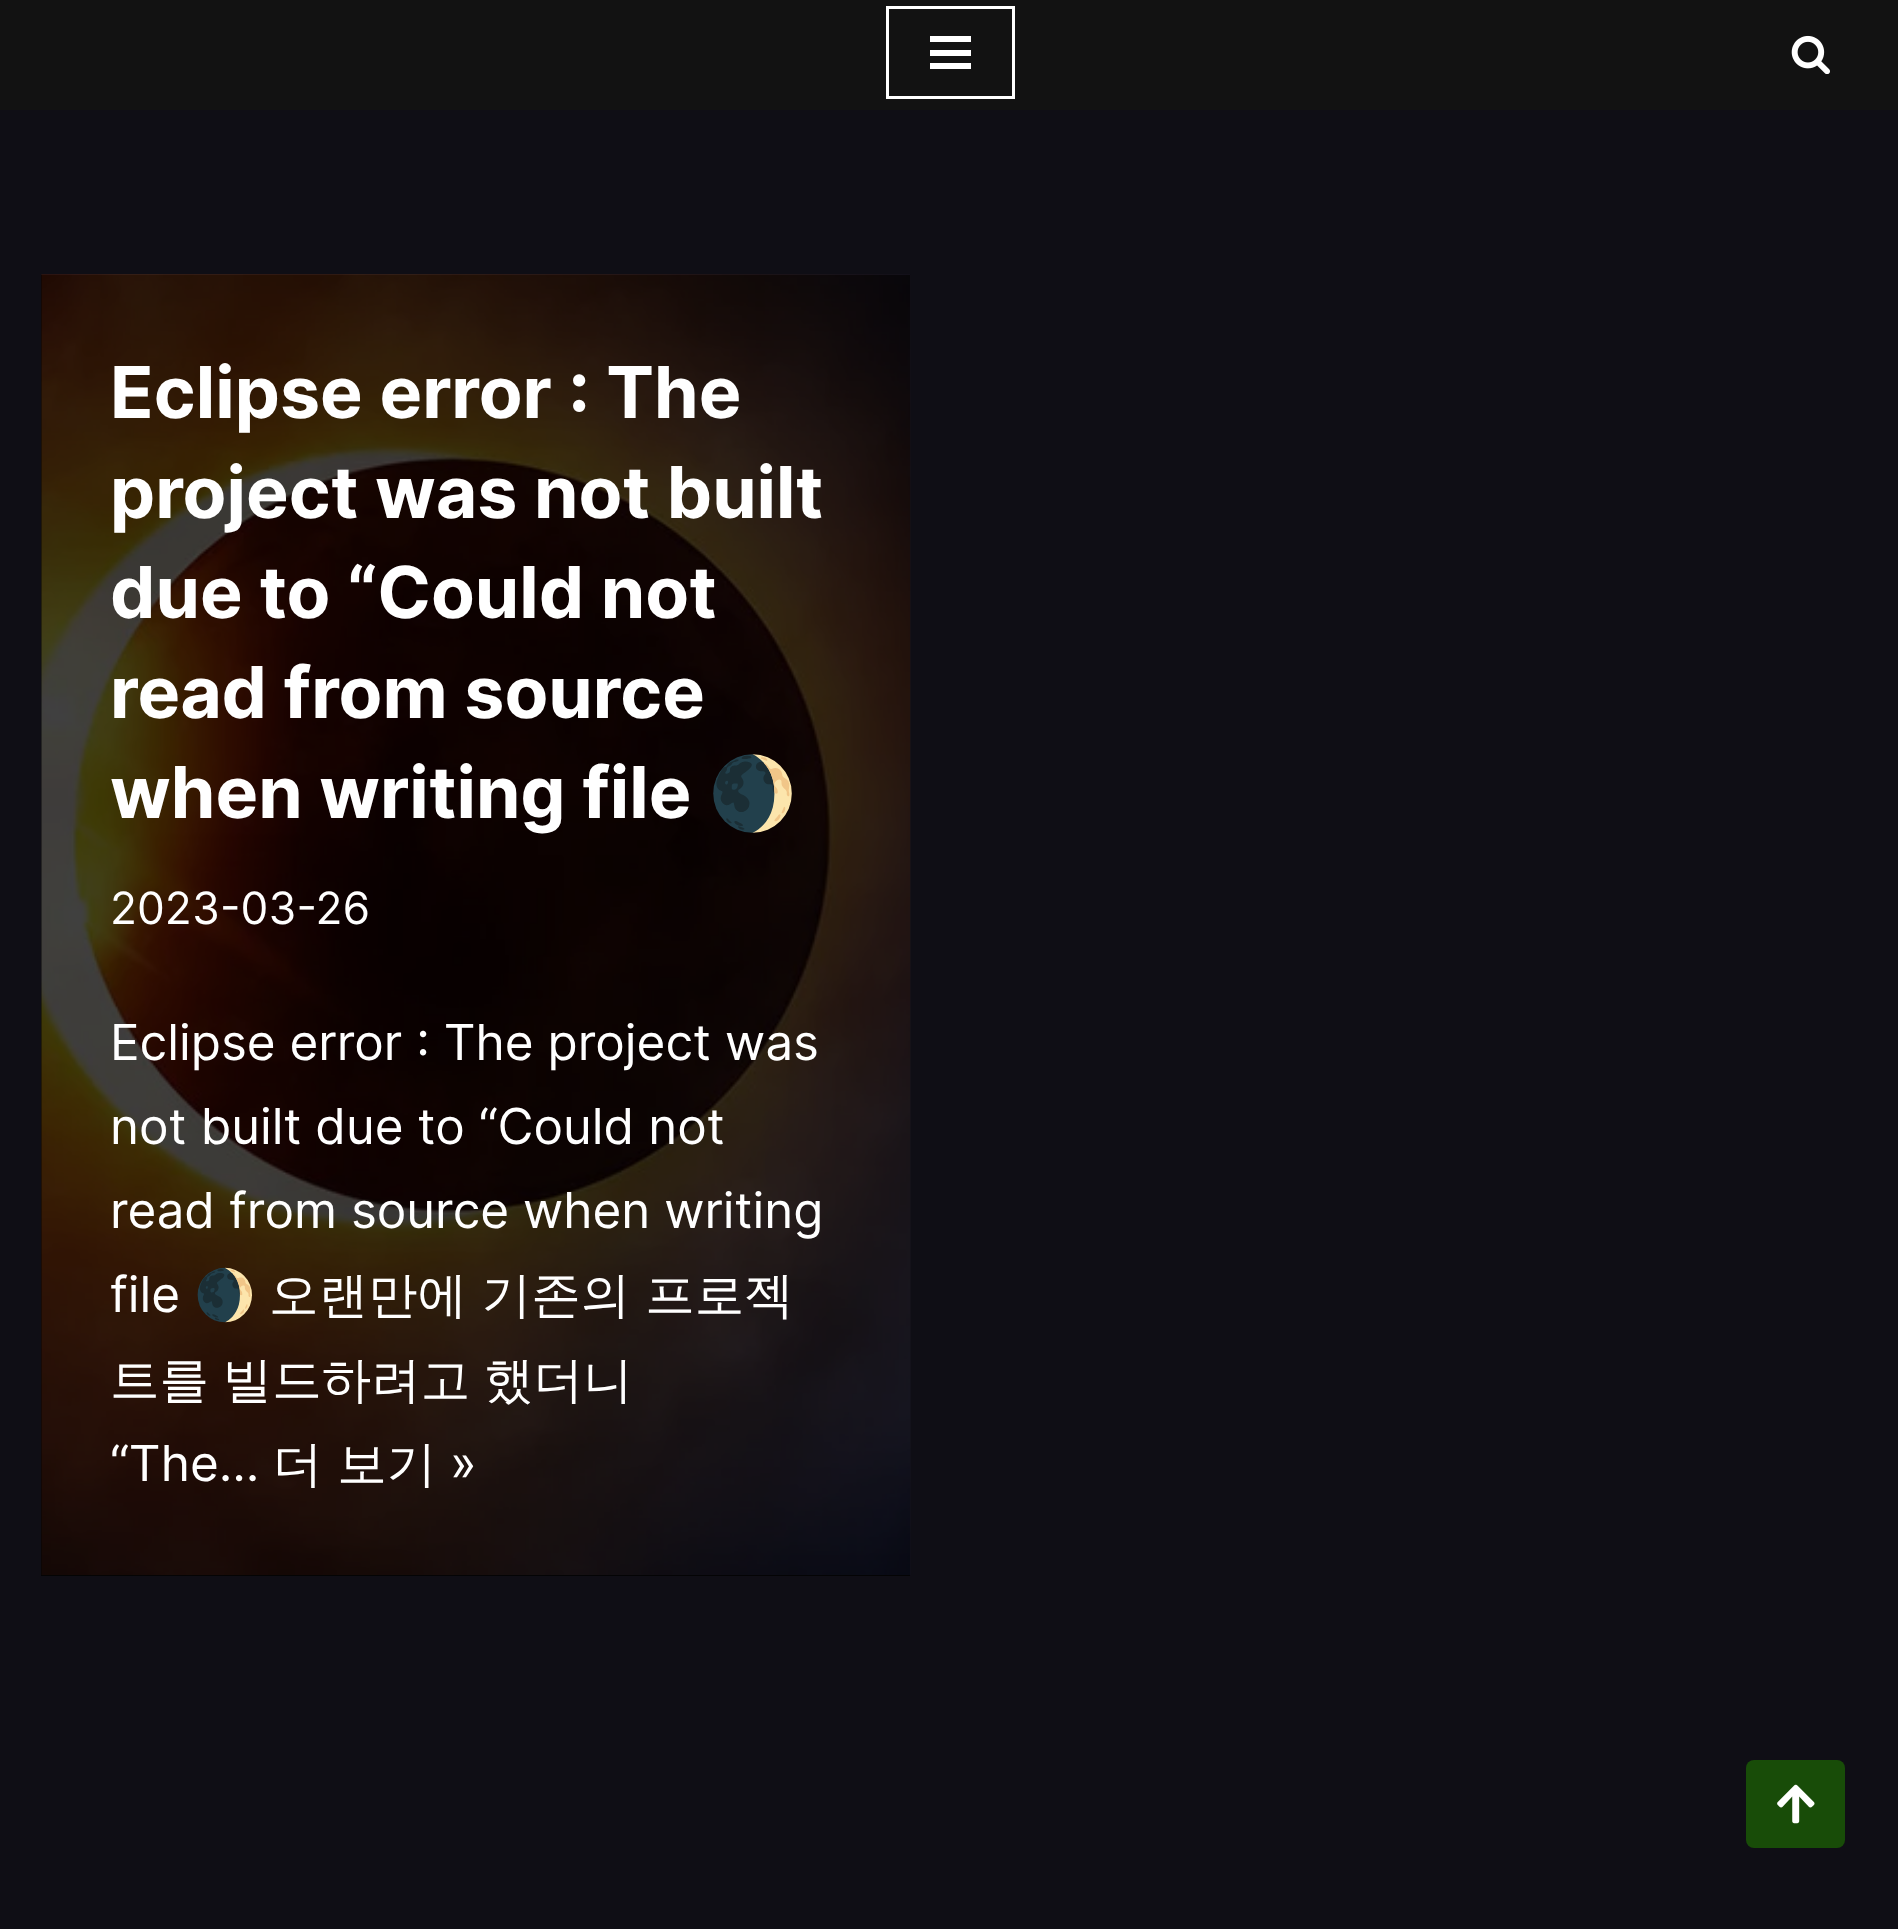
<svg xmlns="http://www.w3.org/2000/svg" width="1898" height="1929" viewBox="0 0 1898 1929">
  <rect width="100%" height="100%" fill="#0f0e15"/>
  <path d="M41 275h869v1301H41z" fill="#040405"/>
  <path d="M0 0h1898v110H0z" fill="#121212"/>
  <path d="M887.5 7.5h126v90H887.5z" fill="none" stroke="#fff" stroke-width="3"/>
  <path d="M930 36h41v6H930z" fill="#fff"/>
  <path d="M930 50h41v6H930z" fill="#fff"/>
  <path d="M930 63h41v6H930z" fill="#fff"/>
  <image x="1791" y="35" width="39" height="39" href="img/1.png"/>
  <image x="41" y="274" width="870" height="1302" href="img/2.png"/>
  <rect x="1746" y="1760" width="99" height="88" rx="8" fill="#184c08"/>
  <image x="1777" y="1784" width="38" height="40" href="img/3.png"/>
  <g font-family="Inter" font-size="71.5" font-weight="bold" fill="#fff">
    <text x="110" y="418">Eclipse error : The</text>
    <text x="110" y="518">project was not built</text>
    <text x="110" y="618">due to “Could not</text>
    <text x="110" y="718">read from source</text>
    <text x="110" y="818">when writing file</text>
  </g>
  <text x="708" y="818" font-family="Noto Color Emoji" font-size="71.5" font-weight="bold" fill="#fff">🌒</text>
  <text x="110" y="924" font-family="Inter" font-size="44.5" fill="#fff">2023-03-26</text>
  <g font-family="Inter" font-size="49.5" fill="#fff">
    <text x="110" y="1060">Eclipse error : The project was</text>
    <text x="110" y="1144">not built due to “Could not</text>
    <text x="110" y="1228">read from source when writing</text>
    <text x="110" y="1312">file</text>
  </g>
  <text x="194" y="1312" font-family="Noto Color Emoji" font-size="49.5" fill="#fff">🌒</text>
  <g font-family="WenQuanYi Zen Hei" font-size="49.5" font-weight="500" fill="#fff">
    <text x="269" y="1312">오랜만에 기존의 프로젝</text>
    <text x="110" y="1397" word-spacing="-1">트를 빌드하려고 했더니</text>
  </g>
  <text x="110" y="1481" font-family="Inter" font-size="49.5" fill="#fff">“The…</text>
  <text x="273" y="1481" font-family="WenQuanYi Zen Hei" font-size="49.5" font-weight="500" fill="#fff">더 보기</text>
  <text x="450" y="1481" font-family="Inter" font-size="49.5" fill="#fff">»</text>
</svg>
